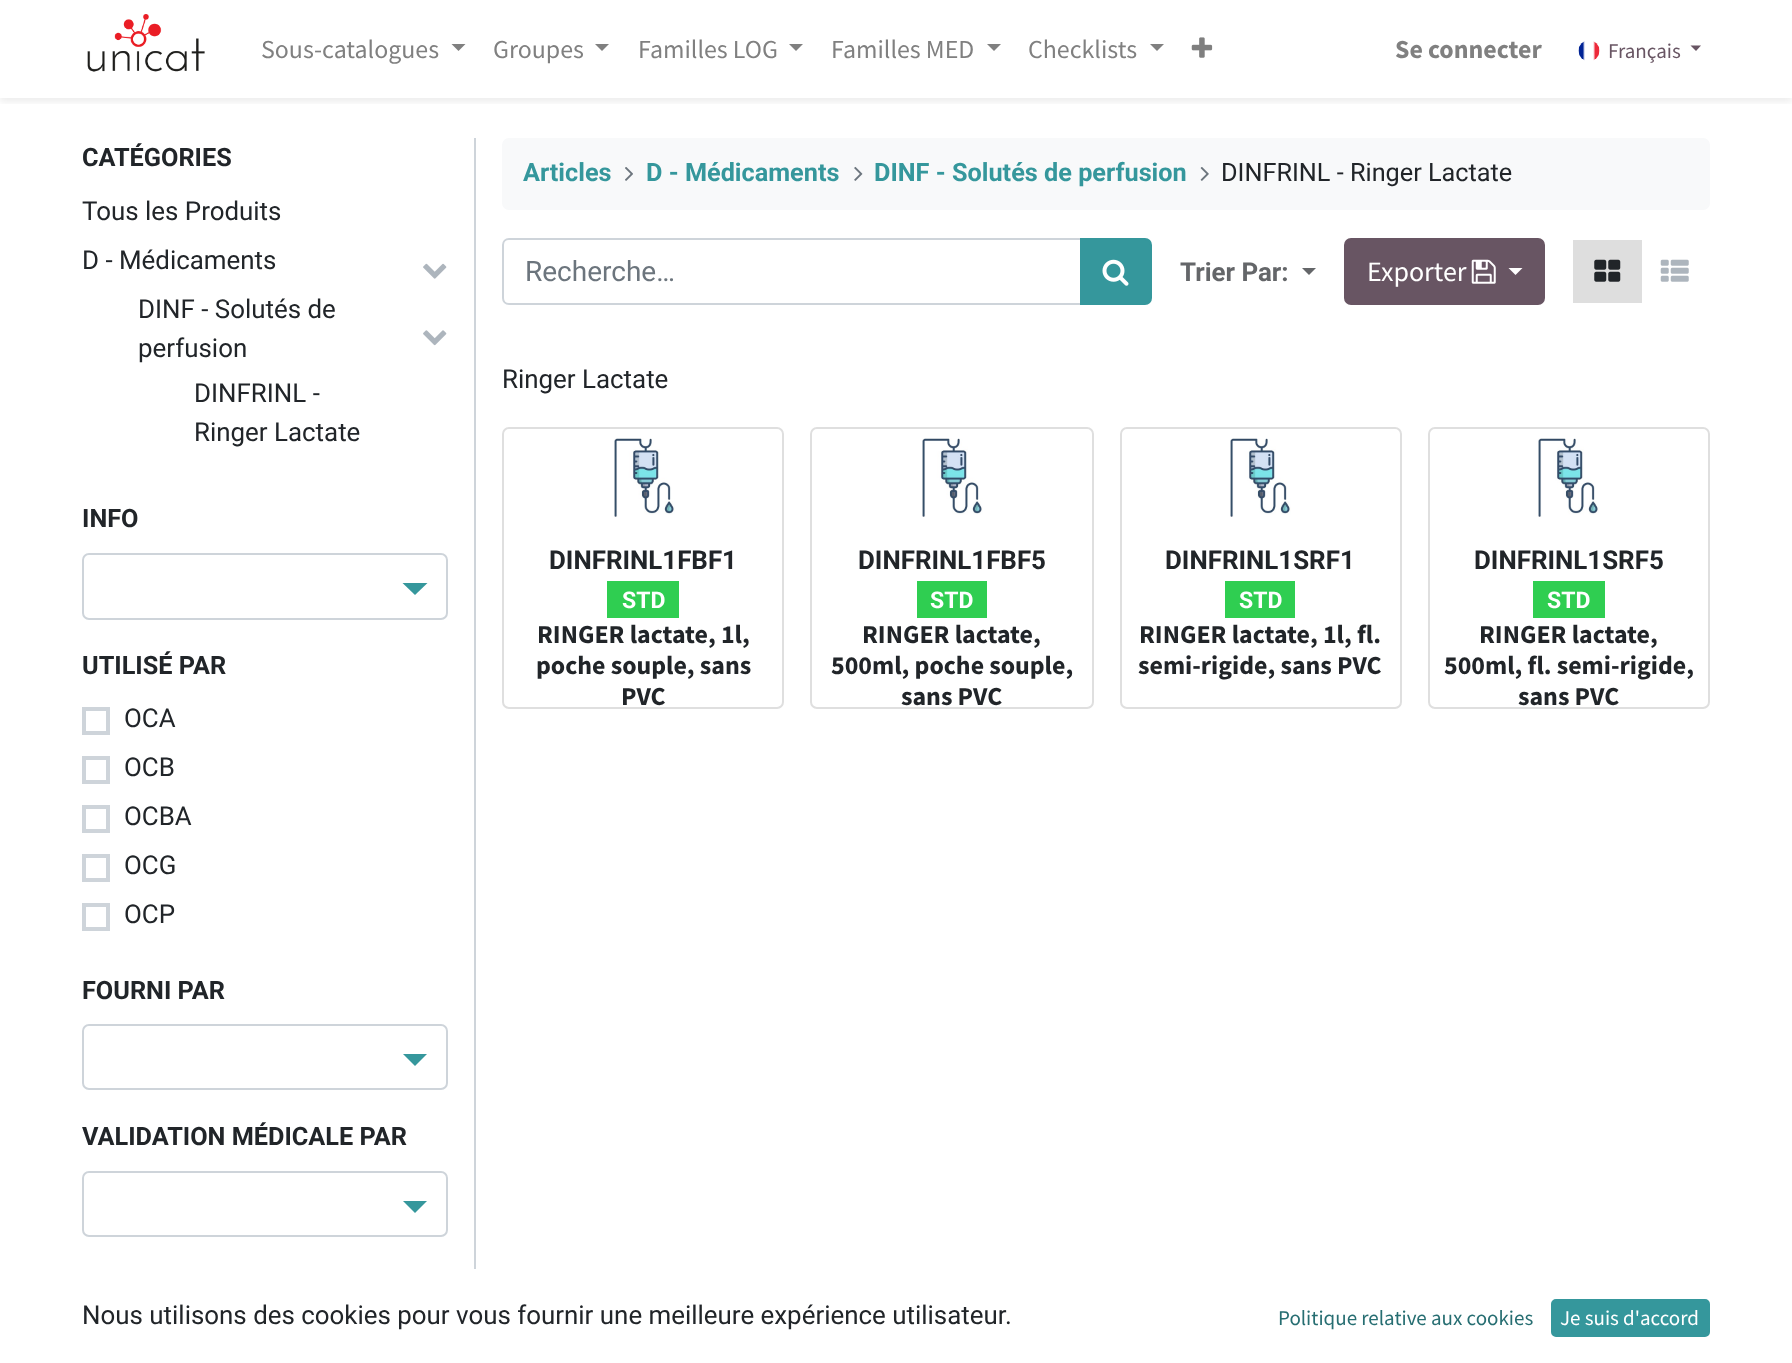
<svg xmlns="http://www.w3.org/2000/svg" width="1792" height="1363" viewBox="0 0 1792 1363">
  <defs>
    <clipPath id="clip1"><path d="M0 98h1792v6H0z"/></clipPath>
    <clipPath id="clip2"><path d="M403 1054h43v26H403z"/></clipPath>
    <clipPath id="clip3"><path d="M403 1201h43v24H403z"/></clipPath>
  </defs>
  <rect width="100%" height="100%" fill="#fff"/>
  <g clip-path="url(#clip1)">
    <path d="M0 4h1792v98H0z" fill="#00000012" filter="blur(3.5px)"/>
  </g>
  <image x="87" y="14" width="118" height="58" href="img/1.png"/>
  <path d="M451.5 44H465.5L458.5 51Z" fill="#808080"/>
  <path d="M595 44H609L602 51Z" fill="#808080"/>
  <path d="M789 44H803L796 51Z" fill="#808080"/>
  <path d="M987 44H1001L994 51Z" fill="#808080"/>
  <path d="M1150 44H1164L1157 51Z" fill="#808080"/>
  <image x="1191" y="37" width="22" height="21" href="img/2.png"/>
  <image x="1578" y="41" width="22" height="20" href="img/3.png"/>
  <path d="M1690.5 45.5H1701L1696 51Z" fill="#685563"/>
  <path d="M474 138h2v1131H474z" fill="#ced4da"/>
  <image x="423" y="263" width="24" height="16" href="img/4.png"/>
  <image x="423" y="330" width="24" height="16" href="img/5.png"/>
  <path d="M402.5 583H427.5L415 595Z" fill="#35979c"/>
  <rect x="83" y="554" width="364" height="65" rx="6" fill="none" stroke="#ced4da" stroke-width="2"/>
  <path d="M84 709h24v24H84z" fill="none" stroke="#ced4da" stroke-width="4"/>
  <path d="M84 758h24v24H84z" fill="none" stroke="#ced4da" stroke-width="4"/>
  <path d="M84 807h24v24H84z" fill="none" stroke="#ced4da" stroke-width="4"/>
  <path d="M84 856h24v24H84z" fill="none" stroke="#ced4da" stroke-width="4"/>
  <path d="M84 905h24v24H84z" fill="none" stroke="#ced4da" stroke-width="4"/>
  <g clip-path="url(#clip2)">
    <path d="M402.5 1053.5H427.5L415 1066Z" fill="#35979c"/>
  </g>
  <rect x="83" y="1025" width="364" height="64" rx="6" fill="none" stroke="#ced4da" stroke-width="2"/>
  <g clip-path="url(#clip3)">
    <path d="M402.5 1200.5H427.5L415 1213Z" fill="#35979c"/>
  </g>
  <rect x="83" y="1172" width="364" height="64" rx="6" fill="none" stroke="#ced4da" stroke-width="2"/>
  <rect x="502" y="138" width="1208" height="72" rx="7" fill="#f8f9fa"/>
  <image x="625" y="167" width="8" height="14" href="img/6.png"/>
  <image x="854" y="166" width="9" height="15" href="img/7.png"/>
  <image x="1200" y="167" width="9" height="14" href="img/8.png"/>
  <path d="M509 239H1081V304H509C505.5 304 503 301.5 503 298V245C503 241.5 505.5 239 509 239Z" fill="none" stroke="#ced4da" stroke-width="2"/>
  <path d="M1081 239H1145C1148.5 239 1151 241.5 1151 245V298C1151 301.5 1148.5 304 1145 304H1081Z" fill="#35979c" stroke="#35979c" stroke-width="2"/>
  <image x="1102" y="259" width="27" height="27" href="img/9.png"/>
  <path d="M1302 268H1316L1309 275Z" fill="#646669"/>
  <rect x="1345" y="239" width="199" height="65" rx="6" fill="#685563" stroke="#685563" stroke-width="2"/>
  <image x="1471" y="259" width="25" height="25" href="img/10.png"/>
  <path d="M1508.5 268H1522.5L1515.5 275Z" fill="#fff"/>
  <path d="M1573 240h69v63H1573z" fill="#dedede"/>
  <image x="1594" y="259" width="27" height="23" href="img/11.png"/>
  <image x="1660" y="259" width="29" height="23" href="img/12.png"/>
  <rect x="503" y="428" width="280" height="280" rx="6" fill="none" stroke="#dfdfdf" stroke-width="2"/>
  <image x="614" y="438" width="61" height="79" href="img/13.png"/>
  <path d="M607 581h72v37H607z" fill="#2fce51"/>
  <rect x="811" y="428" width="282" height="280" rx="6" fill="none" stroke="#dfdfdf" stroke-width="2"/>
  <image x="922" y="438" width="61" height="79" href="img/13.png"/>
  <path d="M917 581h70v37H917z" fill="#2fce51"/>
  <rect x="1121" y="428" width="280" height="280" rx="6" fill="none" stroke="#dfdfdf" stroke-width="2"/>
  <image x="1230" y="438" width="61" height="79" href="img/13.png"/>
  <path d="M1225 581h70v37H1225z" fill="#2fce51"/>
  <rect x="1429" y="428" width="280" height="280" rx="6" fill="none" stroke="#dfdfdf" stroke-width="2"/>
  <image x="1538" y="438" width="61" height="79" href="img/14.png"/>
  <path d="M1533 581h72v37H1533z" fill="#2fce51"/>
  <rect x="1552" y="1300" width="157" height="36" rx="4" fill="#35979c" stroke="#35979c" stroke-width="2"/>
  <g font-family="Source Sans Pro" font-size="25.9" fill="#808080">
    <text x="261" y="58">Sous-catalogues</text>
    <text x="493" y="58">Groupes</text>
    <text x="638" y="58">Familles LOG</text>
    <text x="831" y="58">Familles MED</text>
    <text x="1028" y="58">Checklists</text>
  </g>
  <text x="1395" y="58" font-family="Source Sans Pro" font-size="25.9" font-weight="bold" fill="#808080">Se connecter</text>
  <text x="1608" y="58" font-family="Source Sans Pro" font-size="21" fill="#685563">Français</text>
  <text x="82" y="166" font-family="Roboto" font-size="25.25" font-weight="bold" fill="#212529">CATÉGORIES</text>
  <g font-family="Roboto" font-size="25.9" fill="#212529">
    <text x="82" y="220">Tous les Produits</text>
    <text x="82" y="269">D - Médicaments</text>
    <text x="138" y="318">DINF - Solutés de</text>
    <text x="138" y="357">perfusion</text>
    <text x="194" y="402">DINFRINL -</text>
    <text x="194" y="441">Ringer Lactate</text>
  </g>
  <g font-family="Roboto" font-size="25.25" font-weight="bold" fill="#212529">
    <text x="82" y="527">INFO</text>
    <text x="82" y="674">UTILISÉ PAR</text>
  </g>
  <g font-family="Roboto" font-size="25.9" fill="#212529">
    <text x="124" y="727">OCA</text>
    <text x="124" y="776">OCB</text>
    <text x="124" y="825">OCBA</text>
    <text x="124" y="874">OCG</text>
    <text x="124" y="923">OCP</text>
  </g>
  <g font-family="Roboto" font-size="25.25" font-weight="bold" fill="#212529">
    <text x="82" y="999">FOURNI PAR</text>
    <text x="82" y="1145">VALIDATION MÉDICALE PAR</text>
  </g>
  <g font-family="Roboto" font-size="25.25" font-weight="bold" fill="#35979c">
    <text x="523" y="181">Articles</text>
    <text x="646" y="181">D - Médicaments</text>
    <text x="874" y="181">DINF - Solutés de perfusion</text>
  </g>
  <text x="1221" y="181" font-family="Roboto" font-size="25.25" fill="#212529">DINFRINL - Ringer Lactate</text>
  <text x="525" y="281" font-family="Roboto" font-size="28" fill="#6c757d">Recherche…</text>
  <text x="1180" y="281" font-family="Roboto" font-size="25.9" font-weight="bold" fill="#646669">Trier Par:</text>
  <text x="1367" y="281" font-family="Source Sans Pro" font-size="28" fill="#fff">Exporter</text>
  <text x="502" y="388" font-family="Roboto" font-size="25.9" fill="#212529">Ringer Lactate</text>
  <text x="549" y="569" font-family="Roboto" font-size="25.9" font-weight="bold" fill="#212529">DINFRINL1FBF1</text>
  <text x="622" y="608" font-family="Roboto" font-size="23" font-weight="bold" fill="#fff">STD</text>
  <g font-family="Source Sans Pro" font-size="25.9" font-weight="bold" fill="#212529">
    <text x="537" y="643">RINGER lactate, 1l,</text>
    <text x="536" y="674">poche souple, sans</text>
    <text x="621" y="705">PVC</text>
  </g>
  <text x="858" y="569" font-family="Roboto" font-size="25.9" font-weight="bold" fill="#212529">DINFRINL1FBF5</text>
  <text x="930" y="608" font-family="Roboto" font-size="23" font-weight="bold" fill="#fff">STD</text>
  <g font-family="Source Sans Pro" font-size="25.9" font-weight="bold" fill="#212529">
    <text x="862" y="643">RINGER lactate,</text>
    <text x="831" y="674">500ml, poche souple,</text>
    <text x="901" y="705">sans PVC</text>
  </g>
  <text x="1165" y="569" font-family="Roboto" font-size="25.9" font-weight="bold" fill="#212529">DINFRINL1SRF1</text>
  <text x="1239" y="608" font-family="Roboto" font-size="23" font-weight="bold" fill="#fff">STD</text>
  <g font-family="Source Sans Pro" font-size="25.9" font-weight="bold" fill="#212529">
    <text x="1139" y="643">RINGER lactate, 1l, fl.</text>
    <text x="1138" y="674">semi-rigide, sans PVC</text>
  </g>
  <text x="1474" y="569" font-family="Roboto" font-size="25.9" font-weight="bold" fill="#212529">DINFRINL1SRF5</text>
  <text x="1547" y="608" font-family="Roboto" font-size="23" font-weight="bold" fill="#fff">STD</text>
  <g font-family="Source Sans Pro" font-size="25.9" font-weight="bold" fill="#212529">
    <text x="1479" y="643">RINGER lactate,</text>
    <text x="1444" y="674">500ml, fl. semi-rigide,</text>
    <text x="1518" y="705">sans PVC</text>
  </g>
  <text x="82" y="1324" font-family="Roboto" font-size="25.9" fill="#212529">Nous utilisons des cookies pour vous fournir une meilleure expérience utilisateur.</text>
  <text x="1278" y="1325" font-family="Source Sans Pro" font-size="21" fill="#276e72">Politique relative aux cookies</text>
  <text x="1560" y="1325" font-family="Source Sans Pro" font-size="21" fill="#fff">Je suis d'accord</text>
</svg>
